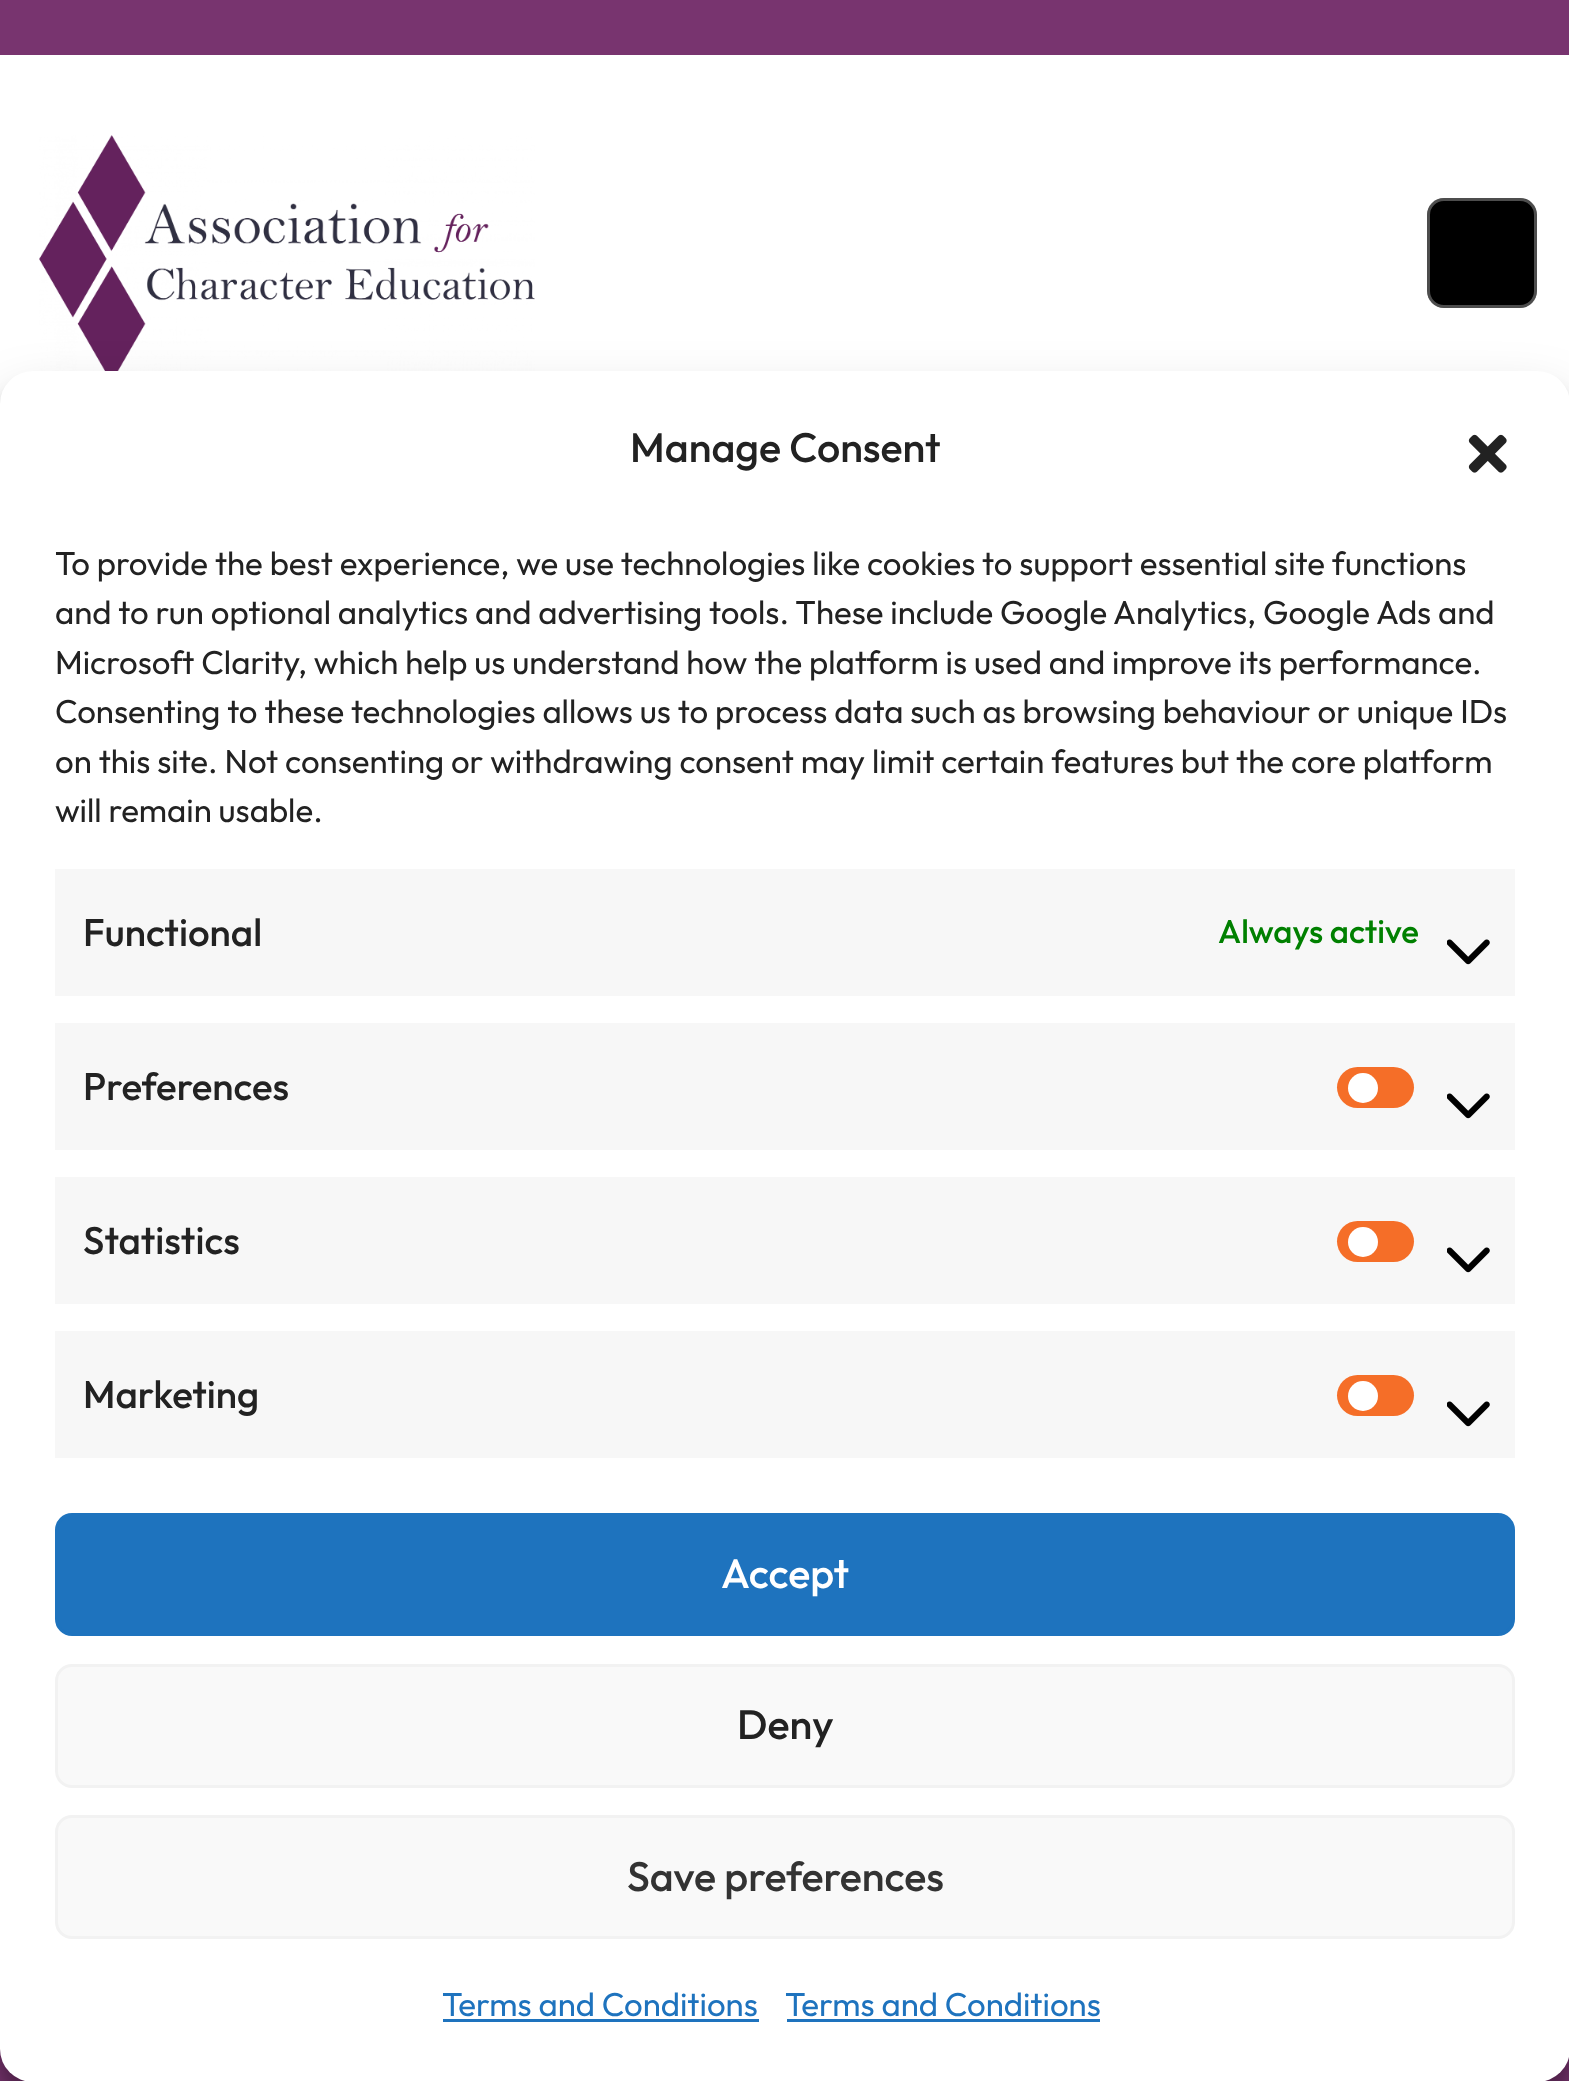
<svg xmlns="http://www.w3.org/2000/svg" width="1569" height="2081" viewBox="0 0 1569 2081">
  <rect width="100%" height="100%" fill="#78346f"/>
  <path d="M0 55h1569v349H0z" fill="#fff"/>
  <image x="39" y="135" width="496" height="236" href="img/1.png"/>
  <rect x="1427" y="198" width="110" height="110" rx="17" fill="#000"/>
  <rect x="1428.5" y="199.5" width="107" height="107" rx="15.5" fill="none" stroke="#ffffff4d" stroke-width="3"/>
  <rect y="388" width="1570" height="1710" rx="33" fill="#0000003b" filter="blur(8px)"/>
  <rect y="399" width="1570" height="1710" rx="33" fill="#00000030" filter="blur(27.5px)"/>
  <rect y="371" width="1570" height="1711" rx="33" fill="#fff"/>
  <image x="1468" y="434" width="39" height="39" href="img/2.png"/>
  <path d="M55 869h1460v127H55z" fill="#f7f7f7"/>
  <image x="1447" y="939" width="43" height="26" href="img/3.png"/>
  <path d="M55 1023h1460v127H55z" fill="#f7f7f7"/>
  <rect x="1337" y="1067" width="77" height="41" rx="20.5" fill="#f56e28"/>
  <circle cx="1363" cy="1088" r="15" fill="#fff"/>
  <image x="1447" y="1093" width="43" height="26" href="img/3.png"/>
  <path d="M55 1177h1460v127H55z" fill="#f7f7f7"/>
  <rect x="1337" y="1221" width="77" height="41" rx="20.5" fill="#f56e28"/>
  <circle cx="1363" cy="1242" r="15" fill="#fff"/>
  <image x="1447" y="1247" width="43" height="26" href="img/3.png"/>
  <path d="M55 1331h1460v127H55z" fill="#f7f7f7"/>
  <rect x="1337" y="1375" width="77" height="41" rx="20.5" fill="#f56e28"/>
  <circle cx="1363" cy="1396" r="15" fill="#fff"/>
  <image x="1447" y="1401" width="43" height="26" href="img/3.png"/>
  <rect x="56.5" y="1514.5" width="1457" height="120" rx="15.5" fill="#1e73be" stroke="#1e73be" stroke-width="3"/>
  <rect x="56.5" y="1665.5" width="1457" height="121" rx="15.5" fill="#f9f9f9" stroke="#f2f2f2" stroke-width="3"/>
  <rect x="56.5" y="1816.5" width="1457" height="121" rx="15.5" fill="#f9f9f9" stroke="#f2f2f2" stroke-width="3"/>
  <path d="M443 2019h316v3H443z" fill="#1e73be"/>
  <path d="M787 2019h313v3H787z" fill="#1e73be"/>
  <text x="630" y="462" font-family="Outfit" font-size="41.25" font-weight="500" fill="#222">Manage Consent</text>
  <g font-family="Outfit" font-size="33" fill="#222">
    <text x="55" y="575">To provide the best experience, we use technologies like cookies to support essential site functions</text>
    <text x="55" y="624">and to run optional analytics and advertising tools. These include Google Analytics, Google Ads and</text>
    <text x="55" y="674">Microsoft Clarity, which help us understand how the platform is used and improve its performance.</text>
    <text x="55" y="723">Consenting to these technologies allows us to process data such as browsing behaviour or unique IDs</text>
    <text x="55" y="773">on this site. Not consenting or withdrawing consent may limit certain features but the core platform</text>
    <text x="55" y="822">will remain usable.</text>
  </g>
  <text x="83" y="946" font-family="Outfit" font-size="38.5" font-weight="500" fill="#222">Functional</text>
  <text x="1218" y="943" font-family="Outfit" font-size="33" font-weight="500" fill="#008000">Always active</text>
  <g font-family="Outfit" font-size="38.5" font-weight="500" fill="#222">
    <text x="83" y="1100">Preferences</text>
    <text x="83" y="1254">Statistics</text>
    <text x="83" y="1408">Marketing</text>
  </g>
  <text x="721" y="1588" font-family="Outfit" font-size="41.25" font-weight="500" fill="#fff">Accept</text>
  <text x="737" y="1739" font-family="Outfit" font-size="41.25" font-weight="500" fill="#222">Deny</text>
  <text x="627" y="1891" font-family="Outfit" font-size="41.25" font-weight="500" fill="#333">Save preferences</text>
  <g font-family="Outfit" font-size="33" fill="#1e73be">
    <text x="442" y="2016">Terms and Conditions</text>
    <text x="785" y="2016">Terms and Conditions</text>
  </g>
</svg>
